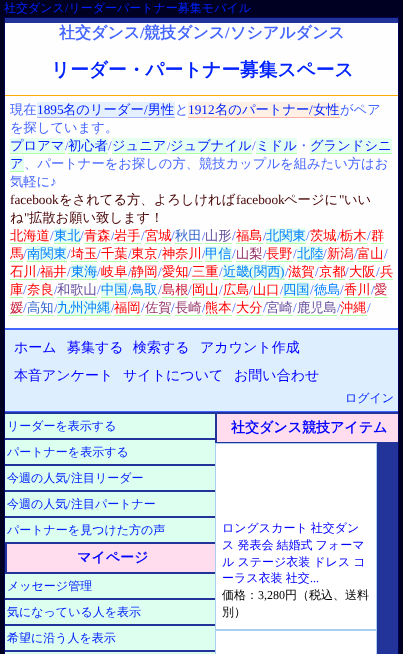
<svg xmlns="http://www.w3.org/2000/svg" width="403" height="654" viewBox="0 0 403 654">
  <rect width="100%" height="100%" fill="#002"/>
  <path d="M4.5 17.5h394v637H4.5z" fill="#239" stroke="#005"/>
  <path d="M5 23h393v305H5z" fill="#fffeff"/>
  <path d="M5 328h393v2H5z" fill="#46f"/>
  <path d="M5 95h393v1H5z" fill="#fa0"/>
  <path d="M37 117h138v1H37z" fill="#a5b0ff"/>
  <path d="M37 102h138v15H37z" fill="#e5f0ff"/>
  <path d="M188 102h152v15H188z" fill="#fff0e5"/>
  <path d="M188 117h152v1H188z" fill="#ffb0a5"/>
  <path d="M10 138h55v15H10z" fill="#e5fff0"/>
  <path d="M10 153h55v1H10z" fill="#b0ffa5"/>
  <path d="M68 153h40v1H68z" fill="#b0ffa5"/>
  <path d="M112 138h55v15H112z" fill="#e5fff0"/>
  <path d="M112 153h55v1H112z" fill="#b0ffa5"/>
  <path d="M170 153h82v1H170z" fill="#b0ffa5"/>
  <path d="M256 138h41v15H256z" fill="#e5fff0"/>
  <path d="M256 153h41v1H256z" fill="#b0ffa5"/>
  <path d="M310 138h82v15H310z" fill="#e5fff0"/>
  <path d="M310 153h82v1H310z" fill="#b0ffa5"/>
  <path d="M10 156h14v15H10z" fill="#e5fff0"/>
  <path d="M10 171h14v1H10z" fill="#b0ffa5"/>
  <path d="M10 243h40v1H10z" fill="#b0ffa5"/>
  <path d="M54 228h26v15H54z" fill="#e5fff0"/>
  <path d="M54 243h26v1H54z" fill="#b0ffa5"/>
  <path d="M84 243h27v1H84z" fill="#b0ffa5"/>
  <path d="M114 243h27v1H114z" fill="#b0ffa5"/>
  <path d="M145 243h26v1H145z" fill="#b0ffa5"/>
  <path d="M175 243h27v1H175z" fill="#b0ffa5"/>
  <path d="M205 243h27v1H205z" fill="#b0ffa5"/>
  <path d="M236 243h27v1H236z" fill="#b0ffa5"/>
  <path d="M266 243h40v1H266z" fill="#b0ffa5"/>
  <path d="M310 243h27v1H310z" fill="#b0ffa5"/>
  <path d="M340 243h27v1H340z" fill="#b0ffa5"/>
  <path d="M371 243h13v1H371z" fill="#b0ffa5"/>
  <path d="M10 261h13v1H10z" fill="#b0ffa5"/>
  <path d="M27 246h40v15H27z" fill="#e5fff0"/>
  <path d="M27 261h40v1H27z" fill="#b0ffa5"/>
  <path d="M71 261h26v1H71z" fill="#b0ffa5"/>
  <path d="M101 261h27v1H101z" fill="#b0ffa5"/>
  <path d="M131 261h27v1H131z" fill="#b0ffa5"/>
  <path d="M162 261h40v1H162z" fill="#b0ffa5"/>
  <path d="M205 261h27v1H205z" fill="#b0ffa5"/>
  <path d="M236 261h27v1H236z" fill="#b0ffa5"/>
  <path d="M266 261h27v1H266z" fill="#b0ffa5"/>
  <path d="M297 246h26v15H297z" fill="#e5fff0"/>
  <path d="M297 261h26v1H297z" fill="#b0ffa5"/>
  <path d="M327 261h27v1H327z" fill="#b0ffa5"/>
  <path d="M357 261h27v1H357z" fill="#b0ffa5"/>
  <path d="M10 279h27v1H10z" fill="#b0ffa5"/>
  <path d="M40 279h27v1H40z" fill="#b0ffa5"/>
  <path d="M71 264h26v15H71z" fill="#e5fff0"/>
  <path d="M71 279h26v1H71z" fill="#b0ffa5"/>
  <path d="M101 279h27v1H101z" fill="#b0ffa5"/>
  <path d="M131 279h27v1H131z" fill="#b0ffa5"/>
  <path d="M162 279h26v1H162z" fill="#b0ffa5"/>
  <path d="M192 279h27v1H192z" fill="#b0ffa5"/>
  <path d="M223 264h62v15H223z" fill="#e5fff0"/>
  <path d="M223 279h62v1H223z" fill="#b0ffa5"/>
  <path d="M288 279h27v1H288z" fill="#b0ffa5"/>
  <path d="M319 279h26v1H319z" fill="#b0ffa5"/>
  <path d="M349 279h27v1H349z" fill="#b0ffa5"/>
  <path d="M380 279h13v1H380z" fill="#b0ffa5"/>
  <path d="M10 297h13v1H10z" fill="#b0ffa5"/>
  <path d="M57 297h40v1H57z" fill="#b0ffa5"/>
  <path d="M101 297h27v1H101z" fill="#b0ffa5"/>
  <path d="M131 297h27v1H131z" fill="#b0ffa5"/>
  <path d="M162 297h26v1H162z" fill="#b0ffa5"/>
  <path d="M192 297h27v1H192z" fill="#b0ffa5"/>
  <path d="M223 297h26v1H223z" fill="#b0ffa5"/>
  <path d="M253 297h27v1H253z" fill="#b0ffa5"/>
  <path d="M283 297h27v1H283z" fill="#b0ffa5"/>
  <path d="M314 297h26v1H314z" fill="#b0ffa5"/>
  <path d="M344 297h27v1H344z" fill="#b0ffa5"/>
  <path d="M374 297h14v1H374z" fill="#b0ffa5"/>
  <path d="M27 297h27v1H27z" fill="#b0ffa5"/>
  <path d="M10 315h13v1H10z" fill="#b0ffa5"/>
  <path d="M27 315h27v1H27z" fill="#b0ffa5"/>
  <path d="M57 315h54v1H57z" fill="#b0ffa5"/>
  <path d="M114 315h27v1H114z" fill="#b0ffa5"/>
  <path d="M145 315h26v1H145z" fill="#b0ffa5"/>
  <path d="M175 315h27v1H175z" fill="#b0ffa5"/>
  <path d="M205 315h27v1H205z" fill="#b0ffa5"/>
  <path d="M236 315h27v1H236z" fill="#b0ffa5"/>
  <path d="M266 315h27v1H266z" fill="#b0ffa5"/>
  <path d="M297 315h40v1H297z" fill="#b0ffa5"/>
  <path d="M340 315h27v1H340z" fill="#b0ffa5"/>
  <path d="M5 330h393v81H5z" fill="#def"/>
  <path d="M5 411h393v1H5z" fill="#46f"/>
  <path d="M5 414h210v24H5z" fill="#ddffef"/>
  <path d="M5 440h210v24H5z" fill="#ddffef"/>
  <path d="M5 466h210v24H5z" fill="#ddffef"/>
  <path d="M5 492h210v24H5z" fill="#ddffef"/>
  <path d="M5 518h210v24H5z" fill="#ddffef"/>
  <path d="M7 544h208v28H7z" fill="#ffddef"/>
  <path d="M5 574h210v24H5z" fill="#ddffef"/>
  <path d="M5 600h210v24H5z" fill="#ddffef"/>
  <path d="M5 626h210v24H5z" fill="#ddffef"/>
  <path d="M5 652h210v2H5z" fill="#ddffef"/>
  <path d="M217 414h181v28H217z" fill="#ffddef"/>
  <path d="M216 444h160v185H216z" fill="#fff"/>
  <path d="M215 443h162v1H215z" fill="#abcdef"/>
  <path d="M376 443h1v187H376z" fill="#abcdef"/>
  <path d="M215 629h162v2H215z" fill="#abcdef"/>
  <path d="M215 443h1v211H215z" fill="#abcdef"/>
  <path d="M216 631h160v23H216z" fill="#fff"/>
  <path d="M376 630h1v24H376z" fill="#abcdef"/>
  <text x="4" y="12" font-family="WenQuanYi Zen Hei" font-size="12" font-weight="500" fill="#02f">社交ダンス リーダーパートナー募集モバイル</text>
  <text x="65" y="12" font-family="Liberation Serif" font-size="12" fill="#02f">/</text>
  <text x="59" y="38" font-family="WenQuanYi Zen Hei" font-size="16" font-weight="bold" fill="#46f">社交ダンス</text>
  <text x="140" y="38" font-family="Liberation Serif" font-size="16" font-weight="bold" fill="#46f">/</text>
  <text x="144" y="38" font-family="WenQuanYi Zen Hei" font-size="16" font-weight="bold" fill="#46f">競技ダンス</text>
  <text x="225" y="38" font-family="Liberation Serif" font-size="16" font-weight="bold" fill="#46f">/</text>
  <text x="230" y="38" font-family="WenQuanYi Zen Hei" font-size="16" font-weight="bold" fill="#46f">ソシアルダンス</text>
  <text x="51" y="76" font-family="WenQuanYi Zen Hei" font-size="18.7" font-weight="bold" fill="#02f">リーダー・パートナー募集スペース</text>
  <text x="10" y="114" font-family="WenQuanYi Zen Hei" font-size="13.3" font-weight="500" fill="#46f">現在</text>
  <text x="37" y="114" font-family="Liberation Serif" font-size="13.3" fill="#02f">1895</text>
  <text x="63" y="114" font-family="WenQuanYi Zen Hei" font-size="13.3" font-weight="500" fill="#02f">名のリーダー 男性</text>
  <text x="175" y="114" font-family="WenQuanYi Zen Hei" font-size="13.3" font-weight="500" fill="#46f">と</text>
  <text x="215" y="114" font-family="WenQuanYi Zen Hei" font-size="13.3" font-weight="500" fill="#02f">名のパートナー</text>
  <text x="340" y="114" font-family="WenQuanYi Zen Hei" font-size="13.3" font-weight="500" fill="#46f">がペア</text>
  <g font-family="Liberation Serif" font-size="13.3" fill="#02f">
    <text x="144" y="114">/</text>
    <text x="188" y="114">1912</text>
    <text x="309" y="114">/</text>
  </g>
  <text x="313" y="114" font-family="WenQuanYi Zen Hei" font-size="13.3" font-weight="500" fill="#02f">女性</text>
  <text x="10" y="132" font-family="WenQuanYi Zen Hei" font-size="13.3" font-weight="500" fill="#46f">を探しています。</text>
  <text x="10" y="150" font-family="WenQuanYi Zen Hei" font-size="13.3" font-weight="500" fill="#02f">プロアマ</text>
  <text x="65" y="150" font-family="Liberation Serif" font-size="13.3" fill="#46f">/</text>
  <path d="M68 138h40v15H68z" fill="#e5fff0"/>
  <text x="68" y="150" font-family="WenQuanYi Zen Hei" font-size="13.3" font-weight="500" fill="#02f">初心者</text>
  <text x="108" y="150" font-family="Liberation Serif" font-size="13.3" fill="#46f">/</text>
  <text x="112" y="150" font-family="WenQuanYi Zen Hei" font-size="13.3" font-weight="500" fill="#02f">ジュニア</text>
  <text x="167" y="150" font-family="Liberation Serif" font-size="13.3" fill="#46f">/</text>
  <path d="M170 138h82v15H170z" fill="#e5fff0"/>
  <text x="170" y="150" font-family="WenQuanYi Zen Hei" font-size="13.3" font-weight="500" fill="#02f">ジュブナイル</text>
  <text x="252" y="150" font-family="Liberation Serif" font-size="13.3" fill="#46f">/</text>
  <text x="256" y="150" font-family="WenQuanYi Zen Hei" font-size="13.3" font-weight="500" fill="#02f">ミドル</text>
  <text x="297" y="150" font-family="WenQuanYi Zen Hei" font-size="13.3" font-weight="500" fill="#46f">・</text>
  <g font-family="WenQuanYi Zen Hei" font-size="13.3" font-weight="500" fill="#02f">
    <text x="310" y="150">グランドシニ</text>
    <text x="10" y="168">ア</text>
  </g>
  <g font-family="WenQuanYi Zen Hei" font-size="13.3" font-weight="500" fill="#46f">
    <text x="24" y="168">、パートナーをお探しの方、競技カップルを組みたい方はお</text>
    <text x="10" y="186">気軽に</text>
  </g>
  <text x="50" y="186" font-family="Liberation Serif" font-size="13.3" fill="#46f">♪</text>
  <text x="10" y="204" font-family="Liberation Serif" font-size="13.3" fill="#400">facebook</text>
  <text x="59" y="204" font-family="WenQuanYi Zen Hei" font-size="13.3" font-weight="500" fill="#400">をされてる方、よろしければ</text>
  <text x="236" y="204" font-family="Liberation Serif" font-size="13.3" fill="#400">facebook</text>
  <text x="284" y="204" font-family="WenQuanYi Zen Hei" font-size="13.3" font-weight="500" fill="#400">ページに</text>
  <text x="339" y="204" font-family="Liberation Serif" font-size="13.3" fill="#400">"</text>
  <g font-family="WenQuanYi Zen Hei" font-size="13.3" font-weight="500" fill="#400">
    <text x="344" y="204">いい</text>
    <text x="10" y="222">ね</text>
  </g>
  <text x="24" y="222" font-family="Liberation Serif" font-size="13.3" fill="#400">"</text>
  <text x="29" y="222" font-family="WenQuanYi Zen Hei" font-size="13.3" font-weight="500" fill="#400">拡散お願い致します！</text>
  <text x="10" y="240" font-family="WenQuanYi Zen Hei" font-size="13.3" font-weight="500" fill="#f00">北海道</text>
  <text x="50" y="240" font-family="Liberation Serif" font-size="13.3" fill="#46f">/</text>
  <text x="54" y="240" font-family="WenQuanYi Zen Hei" font-size="13.3" font-weight="500" fill="#007fff">東北</text>
  <text x="80" y="240" font-family="Liberation Serif" font-size="13.3" fill="#46f">/</text>
  <text x="84" y="240" font-family="WenQuanYi Zen Hei" font-size="13.3" font-weight="500" fill="#f00">青森</text>
  <text x="111" y="240" font-family="Liberation Serif" font-size="13.3" fill="#46f">/</text>
  <path d="M114 231h1v2H114z" fill="#fff"/>
  <text x="114" y="240" font-family="WenQuanYi Zen Hei" font-size="13.3" font-weight="500" fill="#f00">岩手</text>
  <text x="141" y="240" font-family="Liberation Serif" font-size="13.3" fill="#46f">/</text>
  <text x="145" y="240" font-family="WenQuanYi Zen Hei" font-size="13.3" font-weight="500" fill="#f00">宮城</text>
  <text x="171" y="240" font-family="Liberation Serif" font-size="13.3" fill="#46f">/</text>
  <path d="M175 231h1v1H175z" fill="#fff"/>
  <text x="175" y="240" font-family="WenQuanYi Zen Hei" font-size="13.3" font-weight="500" fill="#3266cd">秋田</text>
  <text x="202" y="240" font-family="Liberation Serif" font-size="13.3" fill="#46f">/</text>
  <text x="205" y="240" font-family="WenQuanYi Zen Hei" font-size="13.3" font-weight="500" fill="#644d9b">山形</text>
  <path d="M205 231h1v2H205z" fill="#fff"/>
  <text x="232" y="240" font-family="Liberation Serif" font-size="13.3" fill="#46f">/</text>
  <text x="236" y="240" font-family="WenQuanYi Zen Hei" font-size="13.3" font-weight="500" fill="#f00">福島</text>
  <text x="263" y="240" font-family="Liberation Serif" font-size="13.3" fill="#46f">/</text>
  <path d="M266 228h40v15H266z" fill="#e5fff0"/>
  <text x="266" y="240" font-family="WenQuanYi Zen Hei" font-size="13.3" font-weight="500" fill="#007fff">北関東</text>
  <text x="306" y="240" font-family="Liberation Serif" font-size="13.3" fill="#46f">/</text>
  <text x="310" y="240" font-family="WenQuanYi Zen Hei" font-size="13.3" font-weight="500" fill="#f00">茨城</text>
  <text x="337" y="240" font-family="Liberation Serif" font-size="13.3" fill="#46f">/</text>
  <path d="M340 231h1v1H340z" fill="#fff"/>
  <text x="340" y="240" font-family="WenQuanYi Zen Hei" font-size="13.3" font-weight="500" fill="#f00">栃木</text>
  <text x="367" y="240" font-family="Liberation Serif" font-size="13.3" fill="#46f">/</text>
  <g font-family="WenQuanYi Zen Hei" font-size="13.3" font-weight="500" fill="#f00">
    <text x="371" y="240">群</text>
    <text x="10" y="258">馬</text>
  </g>
  <text x="23" y="258" font-family="Liberation Serif" font-size="13.3" fill="#46f">/</text>
  <text x="27" y="258" font-family="WenQuanYi Zen Hei" font-size="13.3" font-weight="500" fill="#007fff">南関東</text>
  <text x="67" y="258" font-family="Liberation Serif" font-size="13.3" fill="#46f">/</text>
  <text x="71" y="258" font-family="WenQuanYi Zen Hei" font-size="13.3" font-weight="500" fill="#f00">埼玉</text>
  <text x="97" y="258" font-family="Liberation Serif" font-size="13.3" fill="#46f">/</text>
  <path d="M101 249h1v1H101z" fill="#fff"/>
  <text x="101" y="258" font-family="WenQuanYi Zen Hei" font-size="13.3" font-weight="500" fill="#f00">千葉</text>
  <text x="128" y="258" font-family="Liberation Serif" font-size="13.3" fill="#46f">/</text>
  <path d="M131 249h1v2H131z" fill="#fff"/>
  <text x="131" y="258" font-family="WenQuanYi Zen Hei" font-size="13.3" font-weight="500" fill="#f00">東京</text>
  <text x="158" y="258" font-family="Liberation Serif" font-size="13.3" fill="#46f">/</text>
  <text x="162" y="258" font-family="WenQuanYi Zen Hei" font-size="13.3" font-weight="500" fill="#f00">神奈川</text>
  <text x="202" y="258" font-family="Liberation Serif" font-size="13.3" fill="#46f">/</text>
  <path d="M205 246h27v15H205z" fill="#e5fff0"/>
  <text x="205" y="258" font-family="WenQuanYi Zen Hei" font-size="13.3" font-weight="500" fill="#007fff">甲信</text>
  <text x="232" y="258" font-family="Liberation Serif" font-size="13.3" fill="#46f">/</text>
  <text x="236" y="258" font-family="WenQuanYi Zen Hei" font-size="13.3" font-weight="500" fill="#963469">山梨</text>
  <text x="263" y="258" font-family="Liberation Serif" font-size="13.3" fill="#46f">/</text>
  <path d="M266 249h1v1H266z" fill="#fff"/>
  <text x="266" y="258" font-family="WenQuanYi Zen Hei" font-size="13.3" font-weight="500" fill="#f00">長野</text>
  <text x="293" y="258" font-family="Liberation Serif" font-size="13.3" fill="#46f">/</text>
  <text x="297" y="258" font-family="WenQuanYi Zen Hei" font-size="13.3" font-weight="500" fill="#007fff">北陸</text>
  <text x="323" y="258" font-family="Liberation Serif" font-size="13.3" fill="#46f">/</text>
  <text x="327" y="258" font-family="WenQuanYi Zen Hei" font-size="13.3" font-weight="500" fill="#f00">新潟</text>
  <text x="354" y="258" font-family="Liberation Serif" font-size="13.3" fill="#46f">/</text>
  <path d="M357 249h1v1H357z" fill="#fff"/>
  <text x="357" y="258" font-family="WenQuanYi Zen Hei" font-size="13.3" font-weight="500" fill="#f00">富山</text>
  <text x="384" y="258" font-family="Liberation Serif" font-size="13.3" fill="#46f">/</text>
  <text x="10" y="276" font-family="WenQuanYi Zen Hei" font-size="13.3" font-weight="500" fill="#f00">石川</text>
  <text x="37" y="276" font-family="Liberation Serif" font-size="13.3" fill="#46f">/</text>
  <path d="M40 267h1v2H40z" fill="#fff"/>
  <text x="40" y="276" font-family="WenQuanYi Zen Hei" font-size="13.3" font-weight="500" fill="#f00">福井</text>
  <text x="67" y="276" font-family="Liberation Serif" font-size="13.3" fill="#46f">/</text>
  <text x="71" y="276" font-family="WenQuanYi Zen Hei" font-size="13.3" font-weight="500" fill="#007fff">東海</text>
  <text x="97" y="276" font-family="Liberation Serif" font-size="13.3" fill="#46f">/</text>
  <path d="M101 267h1v1H101z" fill="#fff"/>
  <text x="101" y="276" font-family="WenQuanYi Zen Hei" font-size="13.3" font-weight="500" fill="#f00">岐阜</text>
  <text x="128" y="276" font-family="Liberation Serif" font-size="13.3" fill="#46f">/</text>
  <path d="M131 267h1v2H131z" fill="#fff"/>
  <text x="131" y="276" font-family="WenQuanYi Zen Hei" font-size="13.3" font-weight="500" fill="#f00">静岡</text>
  <text x="158" y="276" font-family="Liberation Serif" font-size="13.3" fill="#46f">/</text>
  <text x="162" y="276" font-family="WenQuanYi Zen Hei" font-size="13.3" font-weight="500" fill="#f00">愛知</text>
  <text x="188" y="276" font-family="Liberation Serif" font-size="13.3" fill="#46f">/</text>
  <path d="M192 267h1v1H192z" fill="#fff"/>
  <text x="192" y="276" font-family="WenQuanYi Zen Hei" font-size="13.3" font-weight="500" fill="#f00">三重</text>
  <text x="219" y="276" font-family="Liberation Serif" font-size="13.3" fill="#46f">/</text>
  <text x="223" y="276" font-family="WenQuanYi Zen Hei" font-size="13.3" font-weight="500" fill="#007fff">近畿</text>
  <text x="249" y="276" font-family="Liberation Serif" font-size="13.3" fill="#007fff">(</text>
  <text x="254" y="276" font-family="WenQuanYi Zen Hei" font-size="13.3" font-weight="500" fill="#007fff">関西</text>
  <text x="280" y="276" font-family="Liberation Serif" font-size="13.3" fill="#007fff">)</text>
  <text x="285" y="276" font-family="Liberation Serif" font-size="13.3" fill="#46f">/</text>
  <path d="M288 267h1v2H288z" fill="#fff"/>
  <text x="288" y="276" font-family="WenQuanYi Zen Hei" font-size="13.3" font-weight="500" fill="#f00">滋賀</text>
  <text x="315" y="276" font-family="Liberation Serif" font-size="13.3" fill="#46f">/</text>
  <text x="319" y="276" font-family="WenQuanYi Zen Hei" font-size="13.3" font-weight="500" fill="#f00">京都</text>
  <text x="345" y="276" font-family="Liberation Serif" font-size="13.3" fill="#46f">/</text>
  <path d="M349 267h1v1H349z" fill="#fff"/>
  <text x="349" y="276" font-family="WenQuanYi Zen Hei" font-size="13.3" font-weight="500" fill="#f00">大阪</text>
  <text x="376" y="276" font-family="Liberation Serif" font-size="13.3" fill="#46f">/</text>
  <g font-family="WenQuanYi Zen Hei" font-size="13.3" font-weight="500" fill="#f00">
    <text x="380" y="276">兵</text>
    <text x="10" y="294">庫 奈良</text>
  </g>
  <text x="162" y="294" font-family="WenQuanYi Zen Hei" font-size="13.3" font-weight="500" fill="#c81b37">島根</text>
  <g font-family="WenQuanYi Zen Hei" font-size="13.3" font-weight="500" fill="#f00">
    <text x="192" y="294">岡山</text>
    <text x="253" y="294">山口</text>
    <text x="344" y="294">香川</text>
  </g>
  <g font-family="Liberation Serif" font-size="13.3" fill="#46f">
    <text x="23" y="294">/</text>
    <text x="54" y="294">/</text>
  </g>
  <path d="M57 285h1v2H57z" fill="#fff"/>
  <text x="57" y="294" font-family="WenQuanYi Zen Hei" font-size="13.3" font-weight="500" fill="#644d9b">和歌山</text>
  <text x="97" y="294" font-family="Liberation Serif" font-size="13.3" fill="#46f">/</text>
  <path d="M101 282h27v15H101z" fill="#e5fff0"/>
  <text x="101" y="294" font-family="WenQuanYi Zen Hei" font-size="13.3" font-weight="500" fill="#007fff">中国</text>
  <text x="128" y="294" font-family="Liberation Serif" font-size="13.3" fill="#46f">/</text>
  <path d="M131 285h1v2H131z" fill="#fff"/>
  <text x="131" y="294" font-family="WenQuanYi Zen Hei" font-size="13.3" font-weight="500" fill="#007fff">鳥取</text>
  <g font-family="Liberation Serif" font-size="13.3" fill="#46f">
    <text x="158" y="294">/</text>
    <text x="188" y="294">/</text>
  </g>
  <path d="M192 285h1v1H192z" fill="#fff"/>
  <text x="219" y="294" font-family="Liberation Serif" font-size="13.3" fill="#46f">/</text>
  <text x="223" y="294" font-family="WenQuanYi Zen Hei" font-size="13.3" font-weight="500" fill="#f00">広島</text>
  <g font-family="Liberation Serif" font-size="13.3" fill="#46f">
    <text x="249" y="294">/</text>
    <text x="280" y="294">/</text>
  </g>
  <path d="M283 282h27v15H283z" fill="#e5fff0"/>
  <text x="283" y="294" font-family="WenQuanYi Zen Hei" font-size="13.3" font-weight="500" fill="#007fff">四国</text>
  <text x="310" y="294" font-family="Liberation Serif" font-size="13.3" fill="#46f">/</text>
  <text x="314" y="294" font-family="WenQuanYi Zen Hei" font-size="13.3" font-weight="500" fill="#007fff">徳島</text>
  <g font-family="Liberation Serif" font-size="13.3" fill="#46f">
    <text x="340" y="294">/</text>
    <text x="371" y="294">/</text>
  </g>
  <path d="M374 285h1v1H374z" fill="#fff"/>
  <g font-family="WenQuanYi Zen Hei" font-size="13.3" font-weight="500" fill="#c81b37">
    <text x="374" y="294">愛</text>
    <text x="10" y="312">媛</text>
  </g>
  <text x="23" y="312" font-family="Liberation Serif" font-size="13.3" fill="#46f">/</text>
  <text x="27" y="312" font-family="WenQuanYi Zen Hei" font-size="13.3" font-weight="500" fill="#3266cd">高知</text>
  <text x="54" y="312" font-family="Liberation Serif" font-size="13.3" fill="#46f">/</text>
  <path d="M57 300h54v15H57z" fill="#e5fff0"/>
  <text x="57" y="312" font-family="WenQuanYi Zen Hei" font-size="13.3" font-weight="500" fill="#007fff">九州沖縄</text>
  <text x="111" y="312" font-family="Liberation Serif" font-size="13.3" fill="#46f">/</text>
  <path d="M114 303h1v2H114z" fill="#fff"/>
  <text x="114" y="312" font-family="WenQuanYi Zen Hei" font-size="13.3" font-weight="500" fill="#f00">福岡</text>
  <text x="141" y="312" font-family="Liberation Serif" font-size="13.3" fill="#46f">/</text>
  <text x="145" y="312" font-family="WenQuanYi Zen Hei" font-size="13.3" font-weight="500" fill="#963469">佐賀</text>
  <text x="171" y="312" font-family="Liberation Serif" font-size="13.3" fill="#46f">/</text>
  <path d="M175 303h1v1H175z" fill="#fff"/>
  <text x="175" y="312" font-family="WenQuanYi Zen Hei" font-size="13.3" font-weight="500" fill="#963469">長崎</text>
  <text x="202" y="312" font-family="Liberation Serif" font-size="13.3" fill="#46f">/</text>
  <text x="205" y="312" font-family="WenQuanYi Zen Hei" font-size="13.3" font-weight="500" fill="#f00">熊本</text>
  <path d="M205 303h1v2H205z" fill="#fff"/>
  <text x="232" y="312" font-family="Liberation Serif" font-size="13.3" fill="#46f">/</text>
  <text x="236" y="312" font-family="WenQuanYi Zen Hei" font-size="13.3" font-weight="500" fill="#f00">大分</text>
  <text x="263" y="312" font-family="Liberation Serif" font-size="13.3" fill="#46f">/</text>
  <path d="M266 303h1v1H266z" fill="#fff"/>
  <text x="266" y="312" font-family="WenQuanYi Zen Hei" font-size="13.3" font-weight="500" fill="#644d9b">宮崎</text>
  <text x="293" y="312" font-family="Liberation Serif" font-size="13.3" fill="#46f">/</text>
  <text x="297" y="312" font-family="WenQuanYi Zen Hei" font-size="13.3" font-weight="500" fill="#644d9b">鹿児島</text>
  <text x="337" y="312" font-family="Liberation Serif" font-size="13.3" fill="#46f">/</text>
  <path d="M340 303h1v1H340z" fill="#fff"/>
  <text x="340" y="312" font-family="WenQuanYi Zen Hei" font-size="13.3" font-weight="500" fill="#f00">沖縄</text>
  <text x="367" y="312" font-family="Liberation Serif" font-size="13.3" fill="#46f">/</text>
  <g font-family="WenQuanYi Zen Hei" font-size="14" font-weight="500" fill="#00f">
    <text x="14" y="352">ホーム</text>
    <text x="67" y="352">募集する</text>
    <text x="133" y="352">検索する</text>
    <text x="200" y="352">アカウント作成</text>
    <text x="14" y="380">本音アンケート</text>
    <text x="123" y="380">サイトについて</text>
    <text x="234" y="380">お問い合わせ</text>
  </g>
  <g font-family="WenQuanYi Zen Hei" font-size="12" font-weight="500" fill="#02f">
    <text x="345" y="402">ログイン</text>
    <text x="7" y="430">リーダーを表示する</text>
    <text x="7" y="456">パートナーを表示する</text>
    <text x="7" y="482">今週の人気</text>
  </g>
  <text x="67" y="482" font-family="Liberation Serif" font-size="12" fill="#02f">/</text>
  <g font-family="WenQuanYi Zen Hei" font-size="12" font-weight="500" fill="#02f">
    <text x="71" y="482">注目リーダー</text>
    <text x="7" y="508">今週の人気</text>
  </g>
  <text x="67" y="508" font-family="Liberation Serif" font-size="12" fill="#02f">/</text>
  <g font-family="WenQuanYi Zen Hei" font-size="12" font-weight="500" fill="#02f">
    <text x="71" y="508">注目パートナー</text>
    <text x="7" y="534">パートナーを見つけた方の声</text>
  </g>
  <text x="77" y="562" font-family="WenQuanYi Zen Hei" font-size="14" font-weight="bold" fill="#00f">マイページ</text>
  <g font-family="WenQuanYi Zen Hei" font-size="12" font-weight="500" fill="#02f">
    <text x="7" y="590">メッセージ管理</text>
    <text x="7" y="616">気になっている人を表示</text>
    <text x="7" y="642">希望に沿う人を表示</text>
  </g>
  <text x="231" y="432" font-family="WenQuanYi Zen Hei" font-size="14" font-weight="bold" fill="#00f">社交ダンス競技アイテム</text>
  <g font-family="WenQuanYi Zen Hei" font-size="12" font-weight="500" fill="#00f">
    <text x="222" y="532" word-spacing="-0.5">ロングスカート 社交ダン</text>
    <text x="222" y="549" word-spacing="-0.5">ス 発表会 結婚式 フォーマ</text>
    <text x="222" y="566" word-spacing="-0.5">ル ステージ衣装 ドレス コ</text>
    <text x="222" y="582" word-spacing="-0.5">ーラス衣装 社交</text>
  </g>
  <text x="310" y="582" font-family="Liberation Serif" font-size="12" fill="#00f">...</text>
  <text x="222" y="599" font-family="WenQuanYi Zen Hei" font-size="12" font-weight="500" fill="#000">価格：</text>
  <text x="258" y="599" font-family="Liberation Serif" font-size="12" fill="#000">3,280</text>
  <g font-family="WenQuanYi Zen Hei" font-size="12" font-weight="500" fill="#000">
    <text x="285" y="599">円（税込、送料</text>
    <text x="222" y="616">別）</text>
  </g>
</svg>
